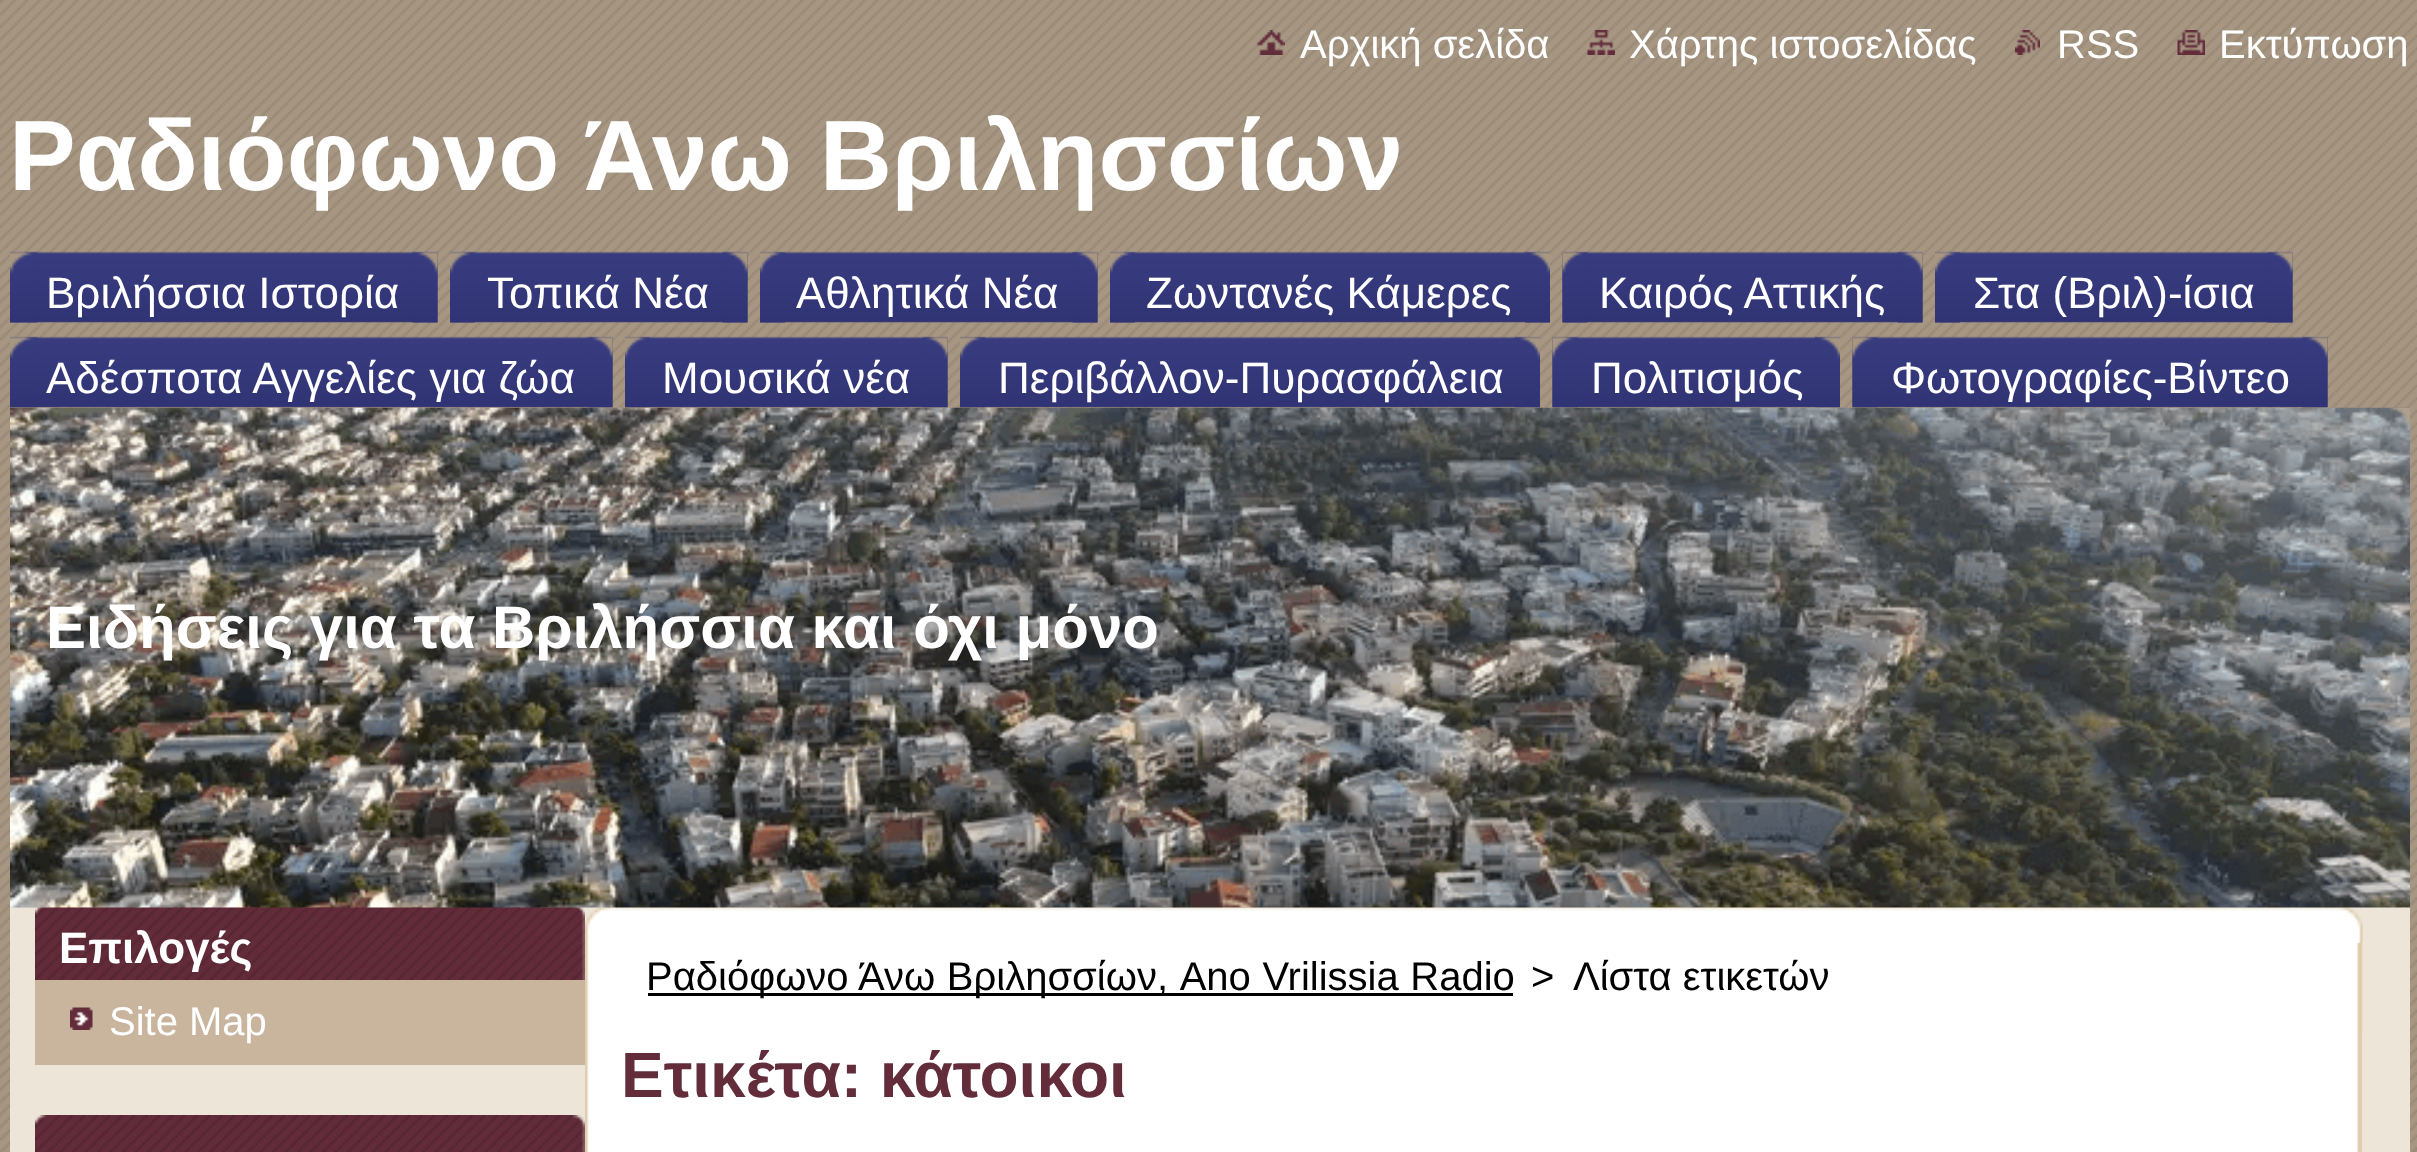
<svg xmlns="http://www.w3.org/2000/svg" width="2417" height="1152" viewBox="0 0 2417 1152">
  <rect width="100%" height="100%" fill="#fff"/>
  <image x="0" y="0" width="2417" height="1152" href="img/1.png"/>
  <image x="1257" y="30" width="28" height="25" href="img/2.png"/>
  <image x="1587" y="30" width="28" height="25" href="img/3.png"/>
  <image x="2015" y="30" width="25" height="25" href="img/4.png"/>
  <image x="2177" y="30" width="28" height="25" href="img/5.png"/>
  <image x="10" y="251" width="428" height="72" href="img/6.png"/>
  <image x="10" y="251" width="28" height="72" href="img/7.png"/>
  <image x="412" y="251" width="26" height="72" href="img/8.png"/>
  <image x="450" y="251" width="298" height="72" href="img/9.png"/>
  <image x="450" y="251" width="25" height="72" href="img/10.png"/>
  <image x="722" y="251" width="26" height="72" href="img/11.png"/>
  <image x="760" y="251" width="338" height="72" href="img/12.png"/>
  <image x="760" y="251" width="25" height="72" href="img/13.png"/>
  <image x="1072" y="251" width="26" height="72" href="img/14.png"/>
  <image x="1110" y="251" width="440" height="72" href="img/15.png"/>
  <image x="1110" y="251" width="25" height="72" href="img/16.png"/>
  <image x="1525" y="251" width="25" height="72" href="img/17.png"/>
  <image x="1562" y="251" width="361" height="72" href="img/18.png"/>
  <image x="1562" y="251" width="26" height="72" href="img/19.png"/>
  <image x="1897" y="251" width="26" height="72" href="img/20.png"/>
  <image x="1935" y="251" width="358" height="72" href="img/21.png"/>
  <image x="1935" y="251" width="25" height="72" href="img/22.png"/>
  <image x="2267" y="251" width="26" height="72" href="img/23.png"/>
  <image x="10" y="336" width="603" height="72" href="img/24.png"/>
  <image x="10" y="336" width="28" height="72" href="img/25.png"/>
  <image x="587" y="336" width="26" height="72" href="img/26.png"/>
  <image x="625" y="336" width="323" height="72" href="img/27.png"/>
  <image x="625" y="336" width="25" height="72" href="img/28.png"/>
  <image x="922" y="336" width="26" height="72" href="img/29.png"/>
  <image x="960" y="336" width="580" height="72" href="img/30.png"/>
  <image x="960" y="336" width="25" height="72" href="img/31.png"/>
  <image x="1515" y="336" width="25" height="72" href="img/32.png"/>
  <image x="1552" y="336" width="288" height="72" href="img/33.png"/>
  <image x="1552" y="336" width="26" height="72" href="img/34.png"/>
  <image x="1815" y="336" width="25" height="72" href="img/35.png"/>
  <image x="1852" y="336" width="476" height="72" href="img/36.png"/>
  <image x="1852" y="336" width="26" height="72" href="img/34.png"/>
  <image x="2302" y="336" width="26" height="72" href="img/37.png"/>
  <path d="M10 907h2400v245H10z" fill="#ede5d8"/>
  <image x="35" y="907" width="550" height="73" href="img/40.png"/>
  <image x="585" y="907" width="1778" height="123" href="img/43.png"/>
  <image x="10" y="407" width="2400" height="501" href="img/38.png"/>
  <image x="2389" y="407" width="21" height="21" href="img/39.png"/>
  <path d="M35 980h550v85H35z" fill="#c9b59e"/>
  <image x="70" y="1007" width="23" height="23" href="img/41.png"/>
  <image x="35" y="1115" width="550" height="37" href="img/42.png"/>
  <image x="585" y="942" width="1778" height="210" href="img/44.png"/>
  <path d="M648 993h865v3H648z" fill="#000"/>
  <g font-family="Liberation Sans" font-size="40" fill="#fff">
    <text x="1300" y="58">Αρχική σελίδα</text>
    <text x="1629" y="58">Χάρτης ιστοσελίδας</text>
    <text x="2057" y="58">RSS</text>
    <text x="2219" y="58">Εκτύπωση</text>
  </g>
  <text x="9" y="190" font-family="Liberation Sans" font-size="100" font-weight="bold" fill="#fff">Ραδιόφωνο Άνω Βριλησσίων</text>
  <g font-family="Liberation Sans" font-size="44" fill="#fff">
    <text x="46" y="308">Βριλήσσια Ιστορία</text>
    <text x="487" y="308">Τοπικά Νέα</text>
    <text x="796" y="308">Αθλητικά Νέα</text>
    <text x="1146" y="308">Ζωντανές Κάμερες</text>
    <text x="1599" y="308">Καιρός Αττικής</text>
    <text x="1973" y="308">Στα (Βριλ)-ίσια</text>
    <text x="46" y="393">Αδέσποτα Αγγελίες για ζώα</text>
    <text x="662" y="393">Μουσικά νέα</text>
    <text x="998" y="393">Περιβάλλον-Πυρασφάλεια</text>
    <text x="1591" y="393">Πολιτισμός</text>
    <text x="1891" y="393">Φωτογραφίες-Βίντεο</text>
  </g>
  <text x="46" y="648" font-family="Liberation Sans" font-size="60" font-weight="bold" fill="#fff">Ειδήσεις για τα Βριλήσσια και όχι μόνο</text>
  <text x="59" y="963" font-family="Liberation Sans" font-size="44" font-weight="bold" fill="#fff">Επιλογές</text>
  <text x="109" y="1035" font-family="Liberation Sans" font-size="40" fill="#fff">Site Map</text>
  <g font-family="Liberation Sans" font-size="40" fill="#000">
    <text x="646" y="990" word-spacing="0.5">Ραδιόφωνο Άνω Βριλησσίων, Ano Vrilissia Radio</text>
    <text x="1531" y="990">&gt;</text>
    <text x="1573" y="990">Λίστα ετικετών</text>
  </g>
  <text x="621" y="1097" font-family="Liberation Sans" font-size="64" font-weight="bold" fill="#632c3b">Ετικέτα: κάτοικοι</text>
</svg>
